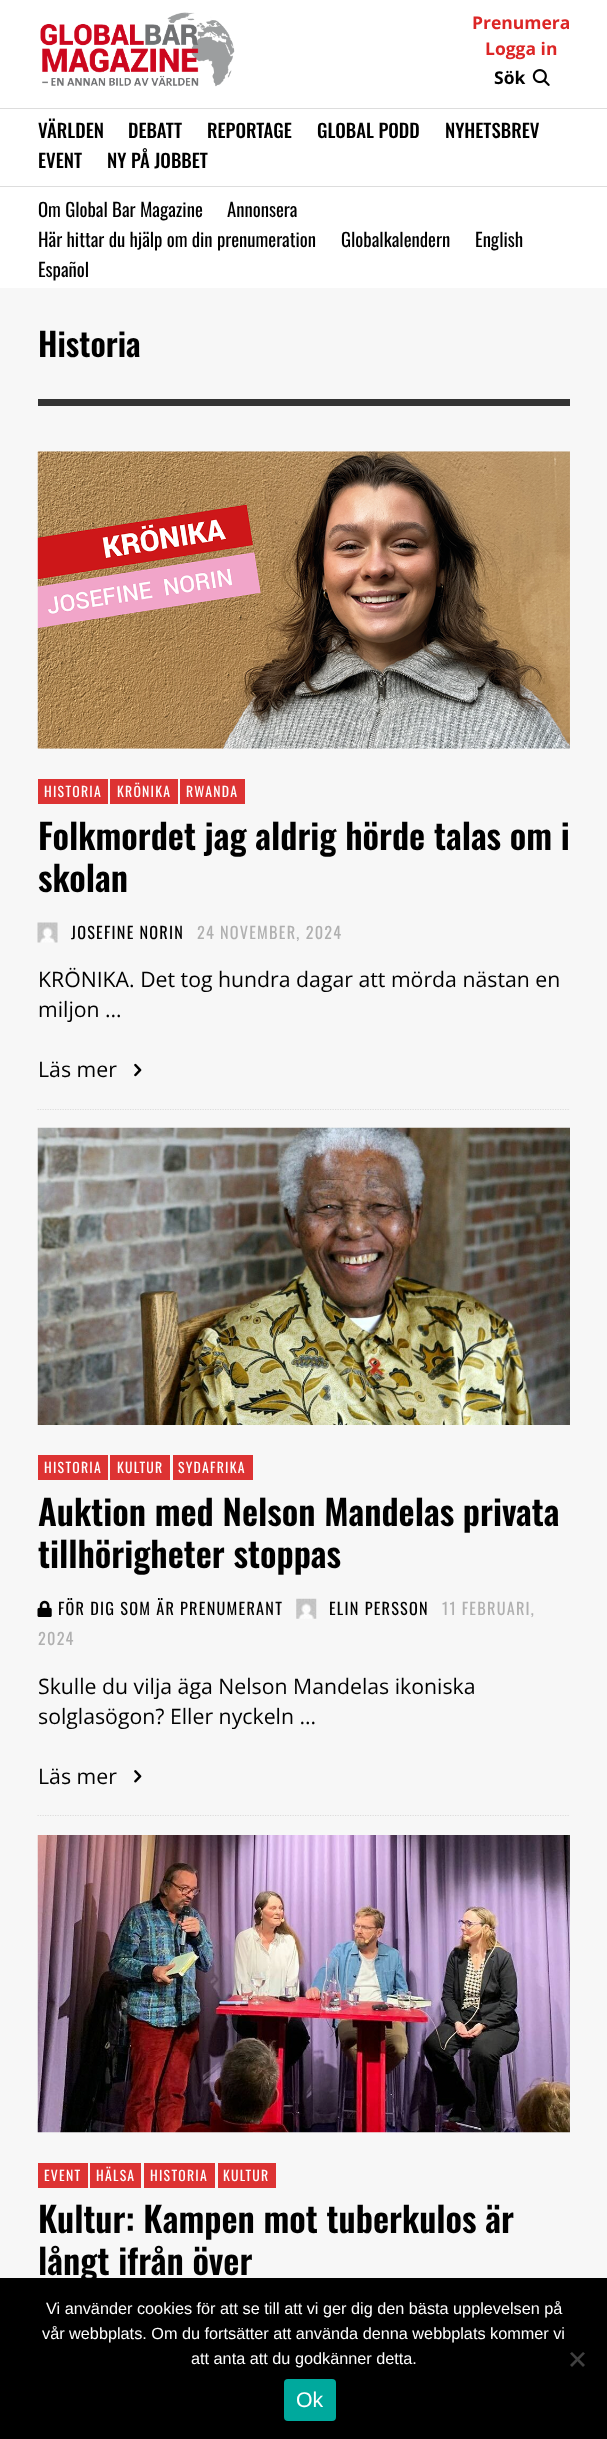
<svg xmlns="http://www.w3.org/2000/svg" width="607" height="2439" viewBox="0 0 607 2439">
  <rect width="100%" height="100%" fill="#fff"/>
  <image x="40" y="12" width="195" height="75" href="img/1.png"/>
  <image x="532" y="69" width="18" height="17" href="img/2.png"/>
  <path d="M0 108h607v1H0z" fill="#ddd"/>
  <path d="M0 186h607v1H0z" fill="#ddd"/>
  <path d="M0 288h607v1990H0z" fill="#f7f7f7"/>
  <path d="M38 399h532v7H38z" fill="#333"/>
  <path d="M37.5 1109.5H570" fill="none" stroke="#ddd" stroke-width="1.2" stroke-dasharray="1.25 1.25"/>
  <image x="37" y="451" width="533" height="298" href="img/3.png"/>
  <path d="M38 779h70v25H38z" fill="#d33"/>
  <path d="M110 779h68v25H110z" fill="#d33"/>
  <path d="M180 779h65v25H180z" fill="#d33"/>
  <image x="37" y="922" width="21" height="21" href="img/4.png"/>
  <image x="134" y="1063" width="8" height="14" href="img/5.png"/>
  <path d="M37.5 1815.5H570" fill="none" stroke="#ddd" stroke-width="1.2" stroke-dasharray="1.25 1.25"/>
  <image x="37" y="1127" width="533" height="298" href="img/6.png"/>
  <path d="M38 1455h70v25H38z" fill="#d33"/>
  <path d="M110 1455h60v25H110z" fill="#d33"/>
  <path d="M173 1455h80v25H173z" fill="#d33"/>
  <image x="37" y="1600" width="15" height="17" href="img/7.png"/>
  <image x="296" y="1598" width="21" height="21" href="img/8.png"/>
  <image x="134" y="1770" width="8" height="13" href="img/9.png"/>
  <image x="37" y="1835" width="533" height="298" href="img/10.png"/>
  <path d="M38 2163h50v25H38z" fill="#d33"/>
  <path d="M90 2163h51v25H90z" fill="#d33"/>
  <path d="M144 2163h71v25H144z" fill="#d33"/>
  <path d="M218 2163h58v25H218z" fill="#d33"/>
  <path d="M0 2278h607v161H0z" fill="#000"/>
  <path d="M583 2352L585 2353.5L572 2367L570 2365Z" fill="#404040"/>
  <path d="M570 2353.5L572 2352L585 2365L583 2367Z" fill="#404040"/>
  <rect x="284" y="2379" width="52" height="42" rx="4" fill="#00a99d"/>
  <g font-family="Open Sans" font-size="17.5" font-weight="bold" fill="#dc2626">
    <text x="472" y="29">Prenumera</text>
    <text x="485" y="55">Logga in</text>
  </g>
  <text x="494" y="84" font-family="Open Sans" font-size="17.5" font-weight="bold" fill="#000">Sök</text>
  <g font-family="Oswald" font-size="18.75" font-weight="500" fill="#000">
    <text x="38" y="138">VÄRLDEN</text>
    <text x="128" y="138">DEBATT</text>
    <text x="207" y="138">REPORTAGE</text>
    <text x="317" y="138">GLOBAL PODD</text>
    <text x="445" y="138">NYHETSBREV</text>
    <text x="38" y="168">EVENT</text>
    <text x="107" y="168">NY PÅ JOBBET</text>
  </g>
  <g font-family="Oswald" font-size="18.75" fill="#000">
    <text x="38" y="217">Om Global Bar Magazine</text>
    <text x="227" y="217">Annonsera</text>
    <text x="38" y="247">Här hittar du hjälp om din prenumeration</text>
    <text x="341" y="247">Globalkalendern</text>
    <text x="475" y="247">English</text>
    <text x="38" y="277">Español</text>
  </g>
  <text x="38" y="357" font-family="Oswald" font-size="32.5" font-weight="600" fill="#000">Historia</text>
  <g font-family="Oswald" font-size="13.75" letter-spacing="1.25" fill="#fff">
    <text x="44" y="797">HISTORIA</text>
    <text x="117" y="797">KRÖNIKA</text>
    <text x="186" y="797">RWANDA</text>
  </g>
  <g font-family="Oswald" font-size="35" font-weight="600" fill="#000">
    <text x="38" y="850">Folkmordet jag aldrig hörde talas om i</text>
    <text x="38" y="892">skolan</text>
  </g>
  <text x="71" y="939" font-family="Oswald" font-size="16.25" letter-spacing="1.25" fill="#000">JOSEFINE NORIN</text>
  <text x="197" y="939" font-family="Oswald" font-size="16.25" letter-spacing="1.25" fill="#b0b0b0">24 NOVEMBER, 2024</text>
  <g font-family="Open Sans" font-size="21.25" fill="#000">
    <text x="38" y="987">KRÖNIKA. Det tog hundra dagar att mörda nästan en</text>
    <text x="38" y="1017">miljon …</text>
    <text x="38" y="1077">Läs mer</text>
  </g>
  <g font-family="Oswald" font-size="13.75" letter-spacing="1.25" fill="#fff">
    <text x="44" y="1473">HISTORIA</text>
    <text x="117" y="1473">KULTUR</text>
    <text x="178" y="1473">SYDAFRIKA</text>
  </g>
  <g font-family="Oswald" font-size="35" font-weight="600" fill="#000">
    <text x="38" y="1526">Auktion med Nelson Mandelas privata</text>
    <text x="38" y="1568">tillhörigheter stoppas</text>
  </g>
  <g font-family="Oswald" font-size="16.25" letter-spacing="1.25" fill="#000">
    <text x="58" y="1615">FÖR DIG SOM ÄR PRENUMERANT</text>
    <text x="329" y="1615">ELIN PERSSON</text>
  </g>
  <g font-family="Oswald" font-size="16.25" letter-spacing="1.25" fill="#b0b0b0">
    <text x="442" y="1615">11 FEBRUARI,</text>
    <text x="38" y="1645">2024</text>
  </g>
  <g font-family="Open Sans" font-size="21.25" fill="#000">
    <text x="38" y="1694">Skulle du vilja äga Nelson Mandelas ikoniska</text>
    <text x="38" y="1724">solglasögon? Eller nyckeln …</text>
    <text x="38" y="1784">Läs mer</text>
  </g>
  <g font-family="Oswald" font-size="13.75" letter-spacing="1.25" fill="#fff">
    <text x="44" y="2181">EVENT</text>
    <text x="96" y="2181">HÄLSA</text>
    <text x="150" y="2181">HISTORIA</text>
    <text x="223" y="2181">KULTUR</text>
  </g>
  <g font-family="Oswald" font-size="35" font-weight="600" fill="#000">
    <text x="38" y="2233">Kultur: Kampen mot tuberkulos är</text>
    <text x="38" y="2275">långt ifrån över</text>
  </g>
  <g font-family="Liberation Sans" font-size="16.25" fill="#fff">
    <text x="46" y="2314">Vi använder cookies för att se till att vi ger dig den bästa upplevelsen på</text>
    <text x="42" y="2339">vår webbplats. Om du fortsätter att använda denna webbplats kommer vi</text>
    <text x="191" y="2364">att anta att du godkänner detta.</text>
  </g>
  <text x="296" y="2407" font-family="Liberation Sans" font-size="21.25" fill="#fff">Ok</text>
</svg>
